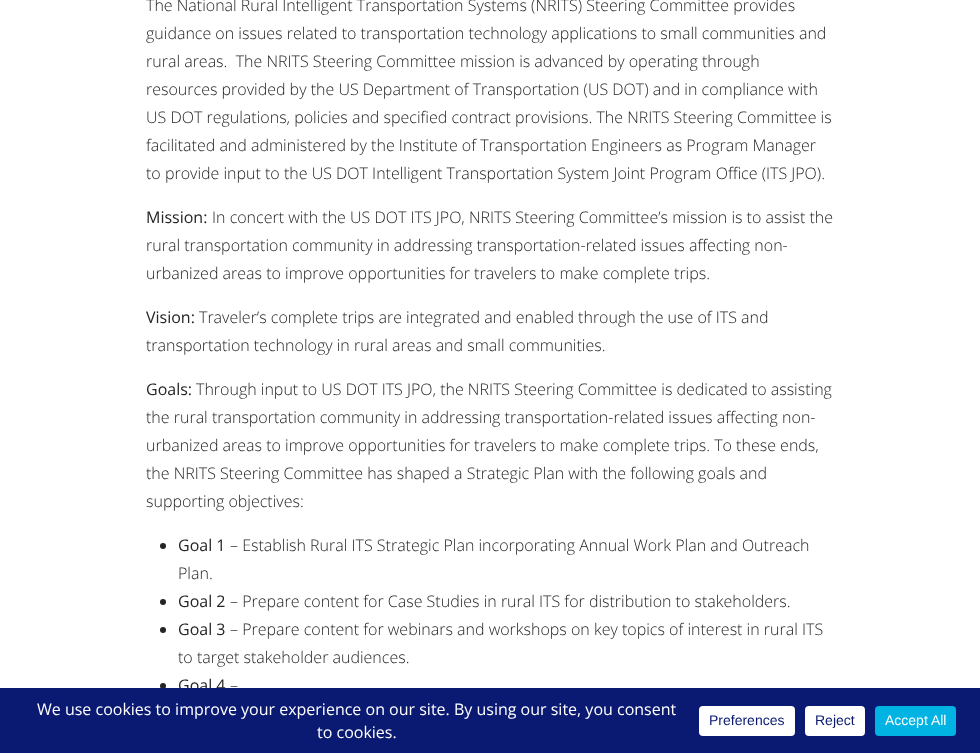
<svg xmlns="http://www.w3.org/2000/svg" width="980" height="753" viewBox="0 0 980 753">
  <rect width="100%" height="100%" fill="#fff"/>
  <circle cx="163" cy="546" r="3" fill="#252525"/>
  <circle cx="163" cy="602" r="3" fill="#252525"/>
  <circle cx="163" cy="630" r="3" fill="#252525"/>
  <circle cx="163" cy="686" r="3" fill="#252525"/>
  <g font-family="Open Sans" font-size="16" font-weight="300" fill="#252525">
    <text x="146" y="11">The National Rural Intelligent Transportation Systems (NRITS) Steering Committee provides</text>
    <text x="146" y="39">guidance on issues related to transportation technology applications to small communities and</text>
    <text x="146" y="67" xml:space="preserve">rural areas.  The NRITS Steering Committee mission is advanced by operating through</text>
    <text x="146" y="95">resources provided by the US Department of Transportation (US DOT) and in compliance with</text>
    <text x="146" y="123">US DOT regulations, policies and specified contract provisions. The NRITS Steering Committee is</text>
    <text x="146" y="151">facilitated and administered by the Institute of Transportation Engineers as Program Manager</text>
    <text x="146" y="179">to provide input to the US DOT Intelligent Transportation System Joint Program Office (ITS JPO).</text>
  </g>
  <text x="146" y="223" font-family="Open Sans" font-size="16" fill="#252525">Mission:</text>
  <g font-family="Open Sans" font-size="16" font-weight="300" fill="#252525">
    <text x="212" y="223">In concert with the US DOT ITS JPO, NRITS Steering Committee’s mission is to assist the</text>
    <text x="146" y="251">rural transportation community in addressing transportation-related issues affecting non-</text>
    <text x="146" y="279">urbanized areas to improve opportunities for travelers to make complete trips.</text>
  </g>
  <text x="146" y="323" font-family="Open Sans" font-size="16" fill="#252525">Vision:</text>
  <g font-family="Open Sans" font-size="16" font-weight="300" fill="#252525">
    <text x="199" y="323">Traveler’s complete trips are integrated and enabled through the use of ITS and</text>
    <text x="146" y="351">transportation technology in rural areas and small communities.</text>
  </g>
  <text x="146" y="395" font-family="Open Sans" font-size="16" fill="#252525">Goals:</text>
  <g font-family="Open Sans" font-size="16" font-weight="300" fill="#252525">
    <text x="196" y="395">Through input to US DOT ITS JPO, the NRITS Steering Committee is dedicated to assisting</text>
    <text x="146" y="423">the rural transportation community in addressing transportation-related issues affecting non-</text>
    <text x="146" y="451">urbanized areas to improve opportunities for travelers to make complete trips. To these ends,</text>
    <text x="146" y="479">the NRITS Steering Committee has shaped a Strategic Plan with the following goals and</text>
    <text x="146" y="507">supporting objectives:</text>
  </g>
  <text x="178" y="551" font-family="Open Sans" font-size="16" fill="#252525">Goal 1</text>
  <g font-family="Open Sans" font-size="16" font-weight="300" fill="#252525">
    <text x="230" y="551">– Establish Rural ITS Strategic Plan incorporating Annual Work Plan and Outreach</text>
    <text x="178" y="579">Plan.</text>
  </g>
  <text x="178" y="607" font-family="Open Sans" font-size="16" fill="#252525">Goal 2</text>
  <text x="230" y="607" font-family="Open Sans" font-size="16" font-weight="300" fill="#252525">– Prepare content for Case Studies in rural ITS for distribution to stakeholders.</text>
  <text x="178" y="635" font-family="Open Sans" font-size="16" fill="#252525">Goal 3</text>
  <g font-family="Open Sans" font-size="16" font-weight="300" fill="#252525">
    <text x="230" y="635">– Prepare content for webinars and workshops on key topics of interest in rural ITS</text>
    <text x="178" y="663">to target stakeholder audiences.</text>
  </g>
  <text x="178" y="691" font-family="Open Sans" font-size="16" fill="#252525">Goal 4</text>
  <text x="230" y="691" font-family="Open Sans" font-size="16" font-weight="300" fill="#252525">–</text>
  <path d="M0 688h980v65H0z" fill="#0a1a72"/>
  <g font-family="Open Sans" font-size="16" fill="#fff">
    <text x="37" y="715">We use cookies to improve your experience on our site. By using our site, you consent</text>
    <text x="317" y="738">to cookies.</text>
  </g>
  <rect x="699" y="706" width="96" height="30" rx="4" fill="#fff"/>
  <text x="709" y="725" font-family="Liberation Sans" font-size="14" fill="#0a1a72">Preferences</text>
  <rect x="805" y="706" width="60" height="30" rx="4" fill="#fff"/>
  <text x="815" y="725" font-family="Liberation Sans" font-size="14" fill="#0a1a72">Reject</text>
  <rect x="875" y="706" width="81" height="30" rx="4" fill="#00b3e3"/>
  <text x="885" y="725" font-family="Liberation Sans" font-size="14" fill="#fff">Accept All</text>
</svg>
